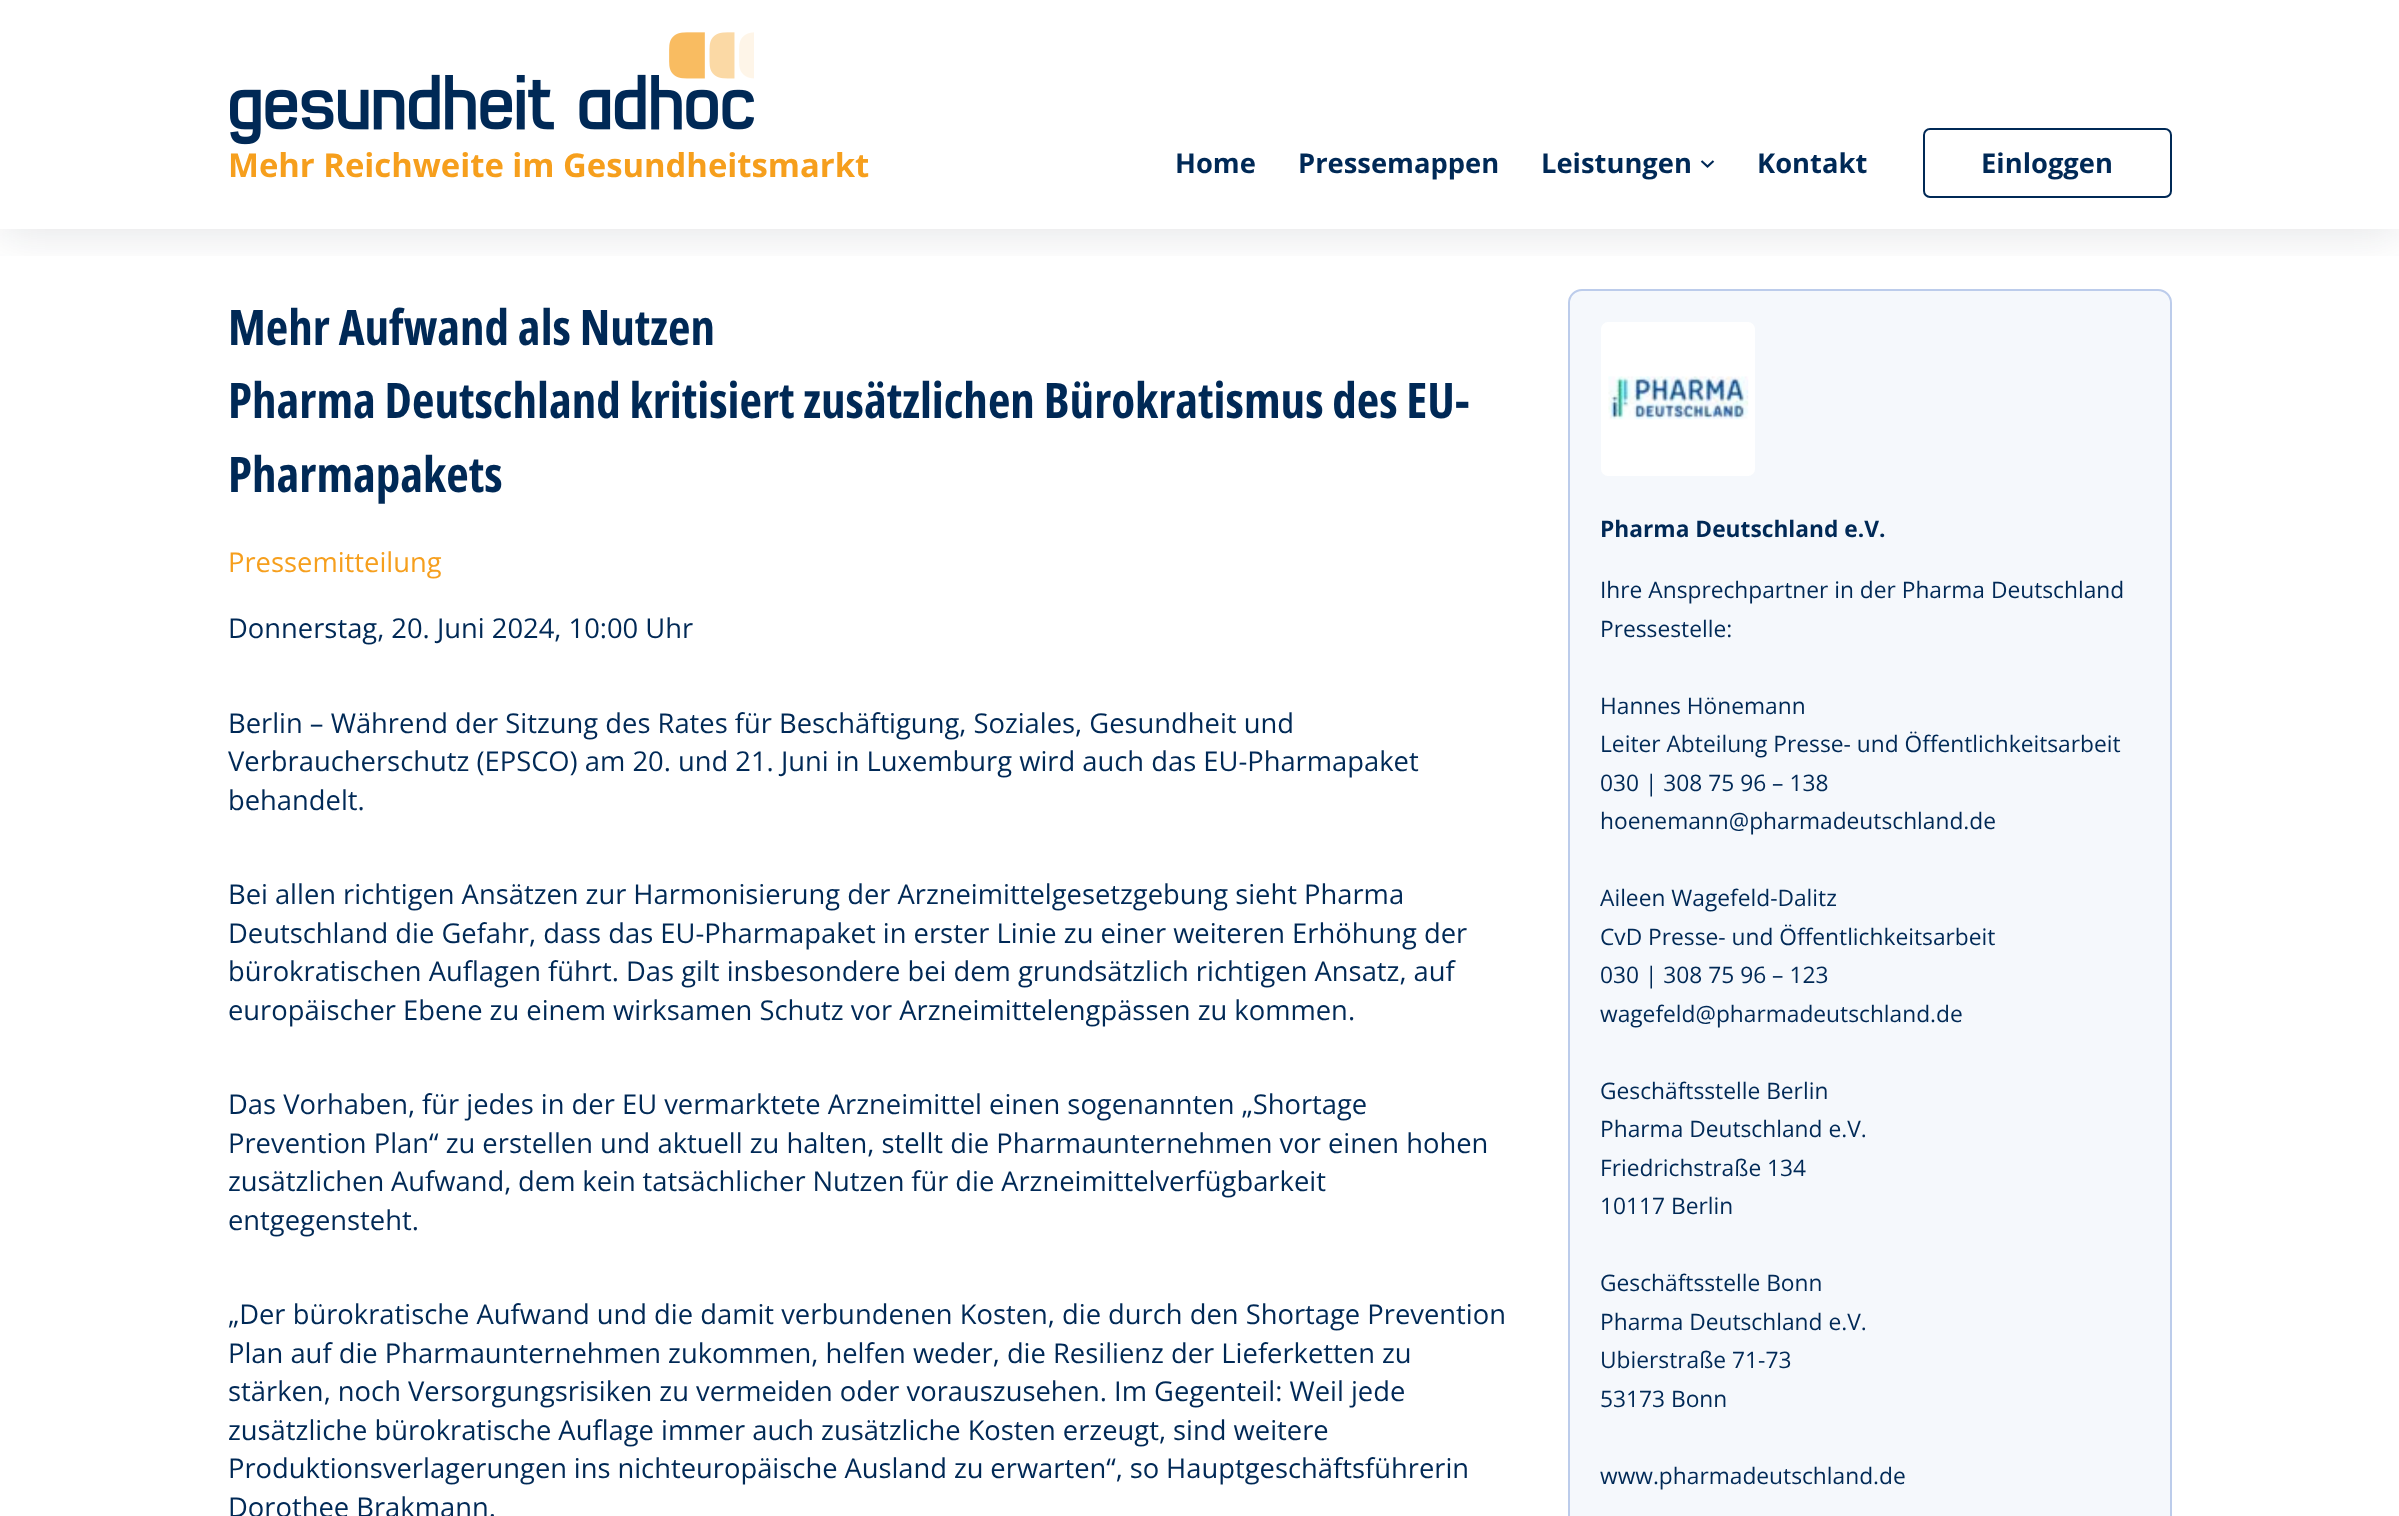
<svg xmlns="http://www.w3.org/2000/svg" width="2399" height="1516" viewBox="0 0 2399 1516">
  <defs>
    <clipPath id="clip1"><path d="M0 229h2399v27H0z"/></clipPath>
  </defs>
  <rect width="100%" height="100%" fill="#fff"/>
  <rect x="1569" y="290" width="602" height="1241" rx="13" fill="#f5f8fc" stroke="#bccceb" stroke-width="2"/>
  <g clip-path="url(#clip1)">
    <path d="M0 4h2399v229H0z" fill="#29323c21" filter="blur(23px)"/>
  </g>
  <image x="230" y="32" width="524" height="113" href="img/1.png"/>
  <path d="M1701.5 161L1707.5 166.5L1713.5 161" fill="none" stroke="#002956" stroke-width="2.1"/>
  <rect x="1924" y="129" width="247" height="68" rx="6" fill="none" stroke="#002956" stroke-width="2"/>
  <rect x="1601" y="322" width="154" height="154" rx="7" fill="#fff"/>
  <image x="1608" y="376" width="141" height="44" href="img/2.png"/>
  <text x="228" y="177" font-family="Open Sans" font-size="32.8" font-weight="bold" fill="#f69f1d">Mehr Reichweite im Gesundheitsmarkt</text>
  <g font-family="Open Sans" font-size="27.35" font-weight="bold" fill="#002956">
    <text x="1175" y="173">Home</text>
    <text x="1298" y="173">Pressemappen</text>
    <text x="1541" y="173">Leistungen</text>
    <text x="1757" y="173">Kontakt</text>
    <text x="1981" y="173">Einloggen</text>
  </g>
  <g font-family="Open Sans Condensed" font-size="49.05" font-weight="bold" fill="#002956">
    <text x="228" y="345">Mehr Aufwand als Nutzen</text>
    <text x="228" y="418">Pharma Deutschland kritisiert zusätzlichen Bürokratismus des EU-</text>
    <text x="228" y="492">Pharmapakets</text>
  </g>
  <text x="228" y="572" font-family="Open Sans" font-size="27.35" fill="#f69f1d">Pressemitteilung</text>
  <g font-family="Open Sans" font-size="27.35" fill="#002956">
    <text x="228" y="638">Donnerstag, 20. Juni 2024, 10:00 Uhr</text>
    <text x="228" y="733">Berlin – Während der Sitzung des Rates für Beschäftigung, Soziales, Gesundheit und</text>
    <text x="228" y="771">Verbraucherschutz (EPSCO) am 20. und 21. Juni in Luxemburg wird auch das EU-Pharmapaket</text>
    <text x="228" y="810">behandelt.</text>
    <text x="228" y="904" word-spacing="-0.1">Bei allen richtigen Ansätzen zur Harmonisierung der Arzneimittelgesetzgebung sieht Pharma</text>
    <text x="228" y="943">Deutschland die Gefahr, dass das EU-Pharmapaket in erster Linie zu einer weiteren Erhöhung der</text>
    <text x="228" y="981">bürokratischen Auflagen führt. Das gilt insbesondere bei dem grundsätzlich richtigen Ansatz, auf</text>
    <text x="228" y="1020">europäischer Ebene zu einem wirksamen Schutz vor Arzneimittelengpässen zu kommen.</text>
    <text x="228" y="1114">Das Vorhaben, für jedes in der EU vermarktete Arzneimittel einen sogenannten „Shortage</text>
    <text x="228" y="1153">Prevention Plan“ zu erstellen und aktuell zu halten, stellt die Pharmaunternehmen vor einen hohen</text>
    <text x="228" y="1191" word-spacing="-0.25">zusätzlichen Aufwand, dem kein tatsächlicher Nutzen für die Arzneimittelverfügbarkeit</text>
    <text x="228" y="1230">entgegensteht.</text>
    <text x="228" y="1324">„Der bürokratische Aufwand und die damit verbundenen Kosten, die durch den Shortage Prevention</text>
    <text x="228" y="1363">Plan auf die Pharmaunternehmen zukommen, helfen weder, die Resilienz der Lieferketten zu</text>
    <text x="228" y="1401">stärken, noch Versorgungsrisiken zu vermeiden oder vorauszusehen. Im Gegenteil: Weil jede</text>
    <text x="228" y="1440">zusätzliche bürokratische Auflage immer auch zusätzliche Kosten erzeugt, sind weitere</text>
    <text x="228" y="1478" word-spacing="-0.25">Produktionsverlagerungen ins nichteuropäische Ausland zu erwarten“, so Hauptgeschäftsführerin</text>
    <text x="228" y="1517">Dorothee Brakmann.</text>
  </g>
  <text x="1600" y="537" font-family="Open Sans" font-size="22.75" font-weight="bold" fill="#002956">Pharma Deutschland e.V.</text>
  <g font-family="Open Sans" font-size="22.75" fill="#002956">
    <text x="1600" y="598">Ihre Ansprechpartner in der Pharma Deutschland</text>
    <text x="1600" y="637">Pressestelle:</text>
    <text x="1600" y="714">Hannes Hönemann</text>
    <text x="1600" y="752">Leiter Abteilung Presse- und Öffentlichkeitsarbeit</text>
    <text x="1600" y="791">030 | 308 75 96 – 138</text>
    <text x="1600" y="829">hoenemann@pharmadeutschland.de</text>
    <text x="1600" y="906">Aileen Wagefeld-Dalitz</text>
    <text x="1600" y="945">CvD Presse- und Öffentlichkeitsarbeit</text>
    <text x="1600" y="983">030 | 308 75 96 – 123</text>
    <text x="1600" y="1022">wagefeld@pharmadeutschland.de</text>
    <text x="1600" y="1099">Geschäftsstelle Berlin</text>
    <text x="1600" y="1137">Pharma Deutschland e.V.</text>
    <text x="1600" y="1176">Friedrichstraße 134</text>
    <text x="1600" y="1214">10117 Berlin</text>
    <text x="1600" y="1291">Geschäftsstelle Bonn</text>
    <text x="1600" y="1330">Pharma Deutschland e.V.</text>
    <text x="1600" y="1368">Ubierstraße 71-73</text>
    <text x="1600" y="1407">53173 Bonn</text>
    <text x="1600" y="1484">www.pharmadeutschland.de</text>
  </g>
</svg>
